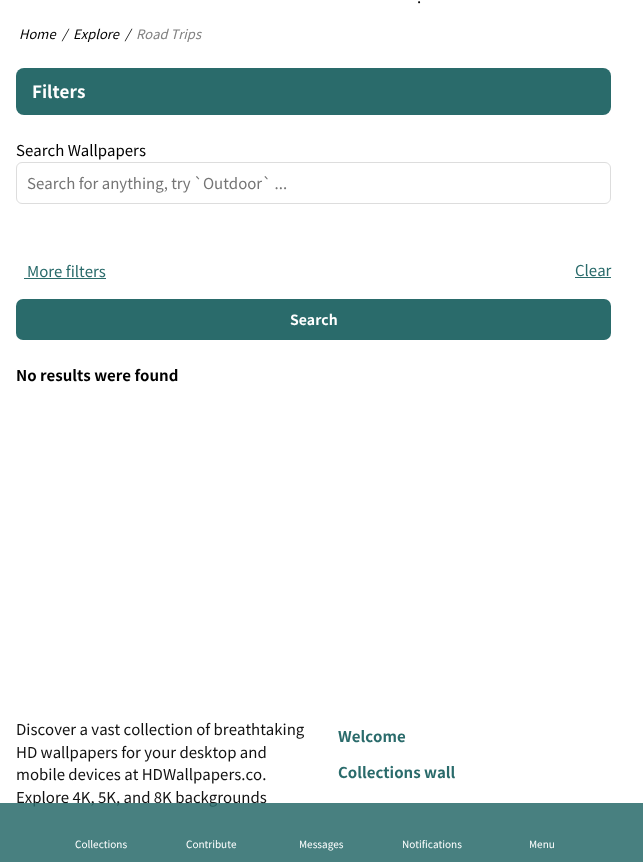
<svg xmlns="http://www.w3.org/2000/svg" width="643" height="862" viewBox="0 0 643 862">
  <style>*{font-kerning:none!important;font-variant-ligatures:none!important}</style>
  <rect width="100%" height="100%" fill="#fff"/>
  <rect x="16" y="68" width="595" height="47" rx="8" fill="#2a6b6b"/>
  <rect x="16.5" y="162.5" width="594" height="41" rx="5.5" fill="none" stroke="#ddd"/>
  <path d="M24 278h82v1H24z" fill="#2a6b6b"/>
  <path d="M575 277h36v1H575z" fill="#2a6b6b"/>
  <rect x="16" y="299" width="595" height="41" rx="7" fill="#2a6b6b"/>
  <text x="417" y="3" font-family="Noto Sans JP" font-size="15" fill="#000">.</text>
  <g font-family="Noto Sans JP" font-size="13" font-style="italic" fill="#000">
    <text x="19" y="39">Home</text>
    <text x="62" y="39">/</text>
    <text x="73" y="39">Explore</text>
    <text x="125" y="39">/</text>
  </g>
  <text x="136" y="39" font-family="Noto Sans JP" font-size="13" font-style="italic" fill="#808080">Road Trips</text>
  <text x="32" y="98" font-family="Noto Sans JP" font-size="17" font-weight="bold" fill="#fff">Filters</text>
  <text x="16" y="156" font-family="Noto Sans JP" font-size="15" fill="#000">Search Wallpapers</text>
  <text x="27" y="189" font-family="Noto Sans JP" font-size="15" fill="#757575">Search for anything, try `Outdoor` ...</text>
  <g font-family="Noto Sans JP" font-size="15" fill="#2a6b6b">
    <text x="27" y="277">More filters</text>
    <text x="575" y="276">Clear</text>
  </g>
  <text x="290" y="325" font-family="Noto Sans JP" font-size="14" font-weight="bold" fill="#fff">Search</text>
  <text x="16" y="381" font-family="Noto Sans JP" font-size="15" font-weight="bold" fill="#000">No results were found</text>
  <g font-family="Noto Sans JP" font-size="15" fill="#111">
    <text x="16" y="735">Discover a vast collection of breathtaking</text>
    <text x="16" y="758">HD wallpapers for your desktop and</text>
    <text x="16" y="780">mobile devices at HDWallpapers.co.</text>
    <text x="16" y="803">Explore 4K, 5K, and 8K backgrounds</text>
  </g>
  <g font-family="Noto Sans JP" font-size="15" font-weight="bold" fill="#2a6b6b">
    <text x="338" y="742">Welcome</text>
    <text x="338" y="778">Collections wall</text>
  </g>
  <path d="M0 803h643v59H0z" fill="#2a6b6bdb"/>
  <g font-family="Noto Sans JP" font-size="10" fill="#fff">
    <text x="75" y="848">Collections</text>
    <text x="186" y="848">Contribute</text>
    <text x="299" y="848">Messages</text>
    <text x="402" y="848">Notifications</text>
    <text x="529" y="848">Menu</text>
  </g>
</svg>
